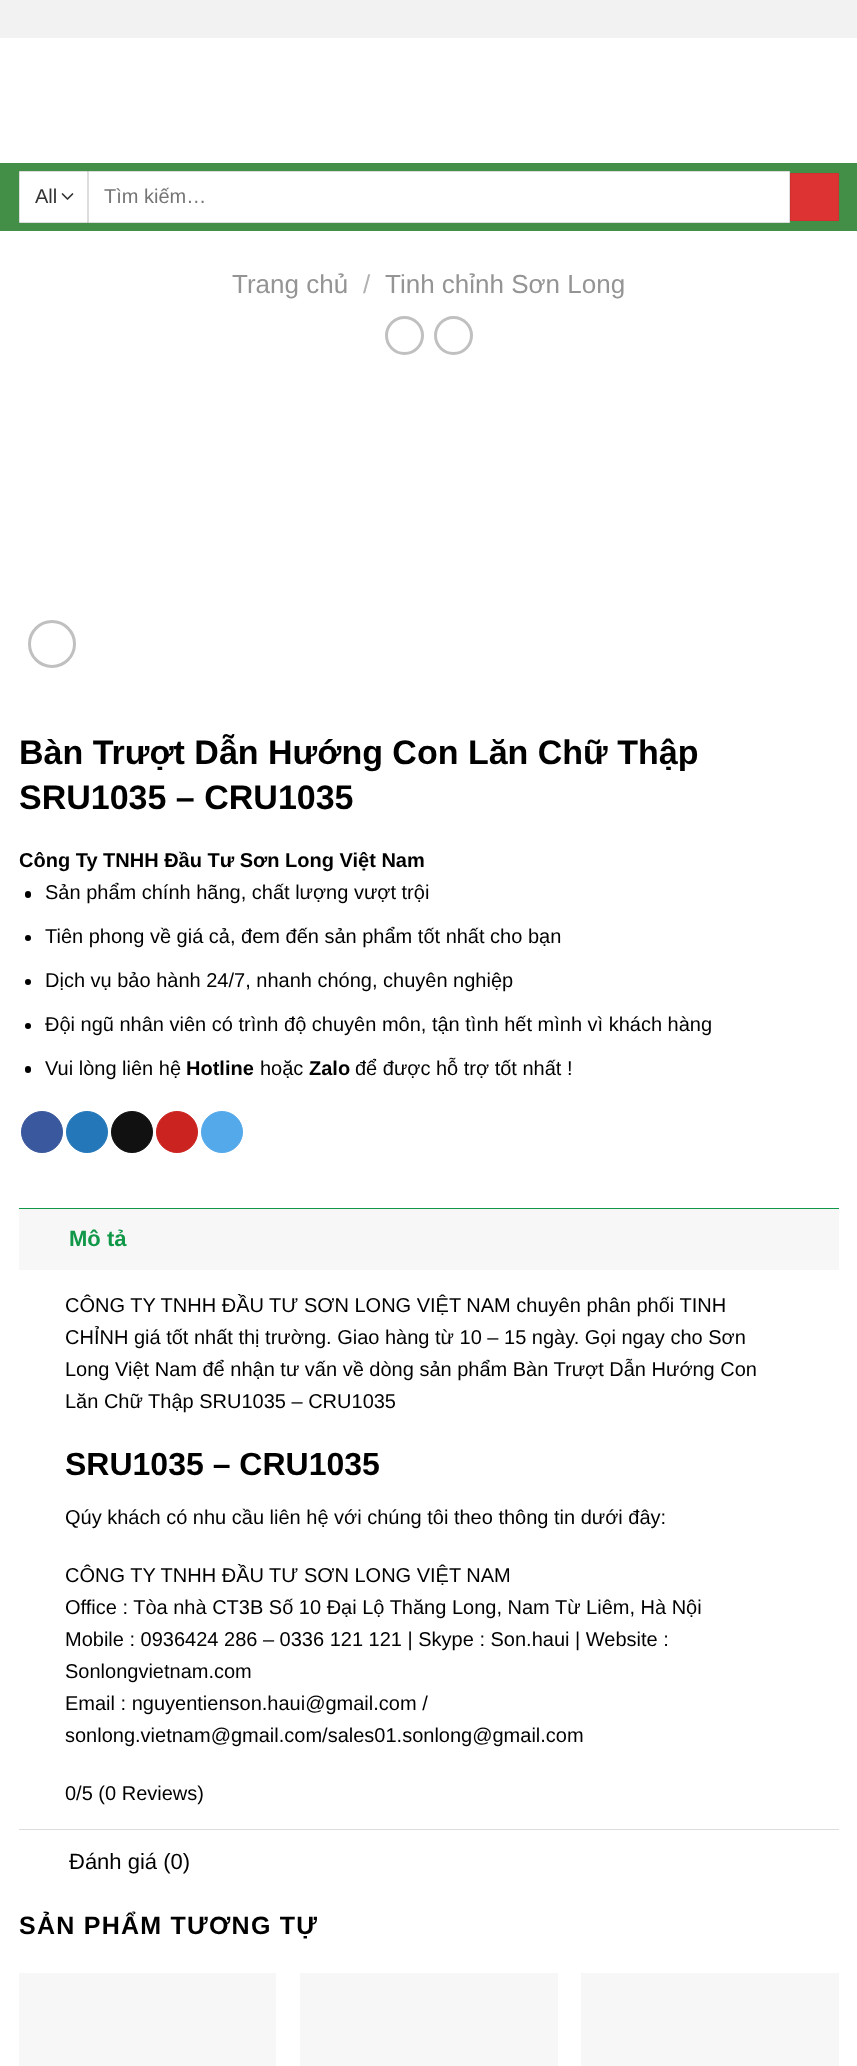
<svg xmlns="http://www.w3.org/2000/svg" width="857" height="2066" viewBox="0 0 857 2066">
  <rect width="100%" height="100%" fill="#fff"/>
  <path d="M0 0h857v38H0z" fill="#f2f2f2"/>
  <path d="M0 163h857v68H0z" fill="#438f48"/>
  <path d="M20 172h67v50H20z" fill="#fff"/>
  <path d="M62.5 194L67.5 199L72.5 194" fill="none" stroke="#333" stroke-width="1.7" stroke-linecap="round" stroke-linejoin="round"/>
  <path d="M19.5 171.5h68v51H19.5z" fill="none" stroke="#ddd"/>
  <path d="M88.5 171.5h701v51H88.5z" fill="#fff" stroke="#ddd"/>
  <path d="M790.5 173.5h48v47H790.5z" fill="#d33" stroke="#d23030"/>
  <circle cx="404.5" cy="335.5" r="18" fill="none" stroke="#c0c0c0" stroke-width="3"/>
  <circle cx="453.5" cy="335.5" r="18" fill="none" stroke="#c0c0c0" stroke-width="3"/>
  <circle cx="52" cy="644" r="22.5" fill="none" stroke="#c0c0c0" stroke-width="3"/>
  <rect x="25" y="891" width="6" height="7" rx="3" fill="#000"/>
  <circle cx="28" cy="938" r="3" fill="#000"/>
  <circle cx="28" cy="982" r="3" fill="#000"/>
  <circle cx="28" cy="1026" r="3" fill="#000"/>
  <rect x="25" y="1066" width="6" height="7" rx="3" fill="#000"/>
  <circle cx="42" cy="1132" r="20.5" fill="#3a589d" stroke="#3a589d"/>
  <circle cx="87" cy="1132" r="20.5" fill="#2478ba" stroke="#2478ba"/>
  <circle cx="132" cy="1132" r="20.5" fill="#111" stroke="#111"/>
  <circle cx="177" cy="1132" r="20.5" fill="#cb2320" stroke="#cb2320"/>
  <circle cx="222" cy="1132" r="20.5" fill="#54a9ea" stroke="#54a9ea"/>
  <path d="M19 1209h820v61H19z" fill="#f7f7f7"/>
  <path d="M19 1208h820v1H19z" fill="#109748"/>
  <path d="M19 1829h820v1H19z" fill="#ddd"/>
  <path d="M19 1973h257v93H19z" fill="#f7f7f7"/>
  <path d="M300 1973h258v93H300z" fill="#f7f7f7"/>
  <path d="M581 1973h258v93H581z" fill="#f7f7f7"/>
  <text x="35" y="203" font-family="Liberation Sans" font-size="20" fill="#333">All</text>
  <text x="104" y="203" font-family="Liberation Sans" font-size="20" fill="#757575">Tìm kiếm…</text>
  <text x="232" y="293" font-family="Liberation Sans" font-size="26" fill="#949494">Trang chủ</text>
  <text x="363" y="293" font-family="Liberation Sans" font-size="26" fill="#b2b2b2">/</text>
  <text x="385" y="293" font-family="Liberation Sans" font-size="26" fill="#949494">Tinh chỉnh Sơn Long</text>
  <g font-family="Liberation Sans" font-size="34" font-weight="bold" fill="#000">
    <text x="19" y="764">Bàn Trượt Dẫn Hướng Con Lăn Chữ Thập</text>
    <text x="19" y="809">SRU1035 – CRU1035</text>
  </g>
  <text x="19" y="867" font-family="Liberation Sans" font-size="20" font-weight="bold" fill="#000">Công Ty TNHH Đầu Tư Sơn Long Việt Nam</text>
  <g font-family="Liberation Sans" font-size="20" fill="#000">
    <text x="45" y="899">Sản phẩm chính hãng, chất lượng vượt trội</text>
    <text x="45" y="943">Tiên phong về giá cả, đem đến sản phẩm tốt nhất cho bạn</text>
    <text x="45" y="987">Dịch vụ bảo hành 24/7, nhanh chóng, chuyên nghiệp</text>
    <text x="45" y="1031">Đội ngũ nhân viên có trình độ chuyên môn, tận tình hết mình vì khách hàng</text>
    <text x="45" y="1075">Vui lòng liên hệ</text>
  </g>
  <text x="186" y="1075" font-family="Liberation Sans" font-size="20" font-weight="bold" fill="#000">Hotline</text>
  <text x="260" y="1075" font-family="Liberation Sans" font-size="20" fill="#000">hoặc</text>
  <text x="309" y="1075" font-family="Liberation Sans" font-size="20" font-weight="bold" fill="#000">Zalo</text>
  <text x="355" y="1075" font-family="Liberation Sans" font-size="20" fill="#000">để được hỗ trợ tốt nhất !</text>
  <text x="69" y="1246" font-family="Liberation Sans" font-size="22" font-weight="bold" fill="#109748">Mô tả</text>
  <g font-family="Liberation Sans" font-size="20" fill="#000">
    <text x="65" y="1312">CÔNG TY TNHH ĐẦU TƯ SƠN LONG VIỆT NAM chuyên phân phối TINH</text>
    <text x="65" y="1344">CHỈNH giá tốt nhất thị trường. Giao hàng từ 10 – 15 ngày. Gọi ngay cho Sơn</text>
    <text x="65" y="1376">Long Việt Nam để nhận tư vấn về dòng sản phẩm Bàn Trượt Dẫn Hướng Con</text>
    <text x="65" y="1408">Lăn Chữ Thập SRU1035 – CRU1035</text>
  </g>
  <text x="65" y="1475" font-family="Liberation Sans" font-size="32" font-weight="bold" fill="#000">SRU1035 – CRU1035</text>
  <g font-family="Liberation Sans" font-size="20" fill="#000">
    <text x="65" y="1524">Qúy khách có nhu cầu liên hệ với chúng tôi theo thông tin dưới đây:</text>
    <text x="65" y="1582">CÔNG TY TNHH ĐẦU TƯ SƠN LONG VIỆT NAM</text>
    <text x="65" y="1614">Office : Tòa nhà CT3B Số 10 Đại Lộ Thăng Long, Nam Từ Liêm, Hà Nội</text>
    <text x="65" y="1646">Mobile : 0936424 286 – 0336 121 121 | Skype : Son.haui | Website :</text>
    <text x="65" y="1678">Sonlongvietnam.com</text>
    <text x="65" y="1710">Email : nguyentienson.haui@gmail.com /</text>
    <text x="65" y="1742">sonlong.vietnam@gmail.com/sales01.sonlong@gmail.com</text>
    <text x="65" y="1800">0/5 (0 Reviews)</text>
  </g>
  <text x="69" y="1869" font-family="Liberation Sans" font-size="22" fill="#000">Đánh giá (0)</text>
  <text x="19" y="1934" font-family="Liberation Sans" font-size="25" font-weight="bold" letter-spacing="1.25" fill="#000">SẢN PHẨM TƯƠNG TỰ</text>
</svg>
